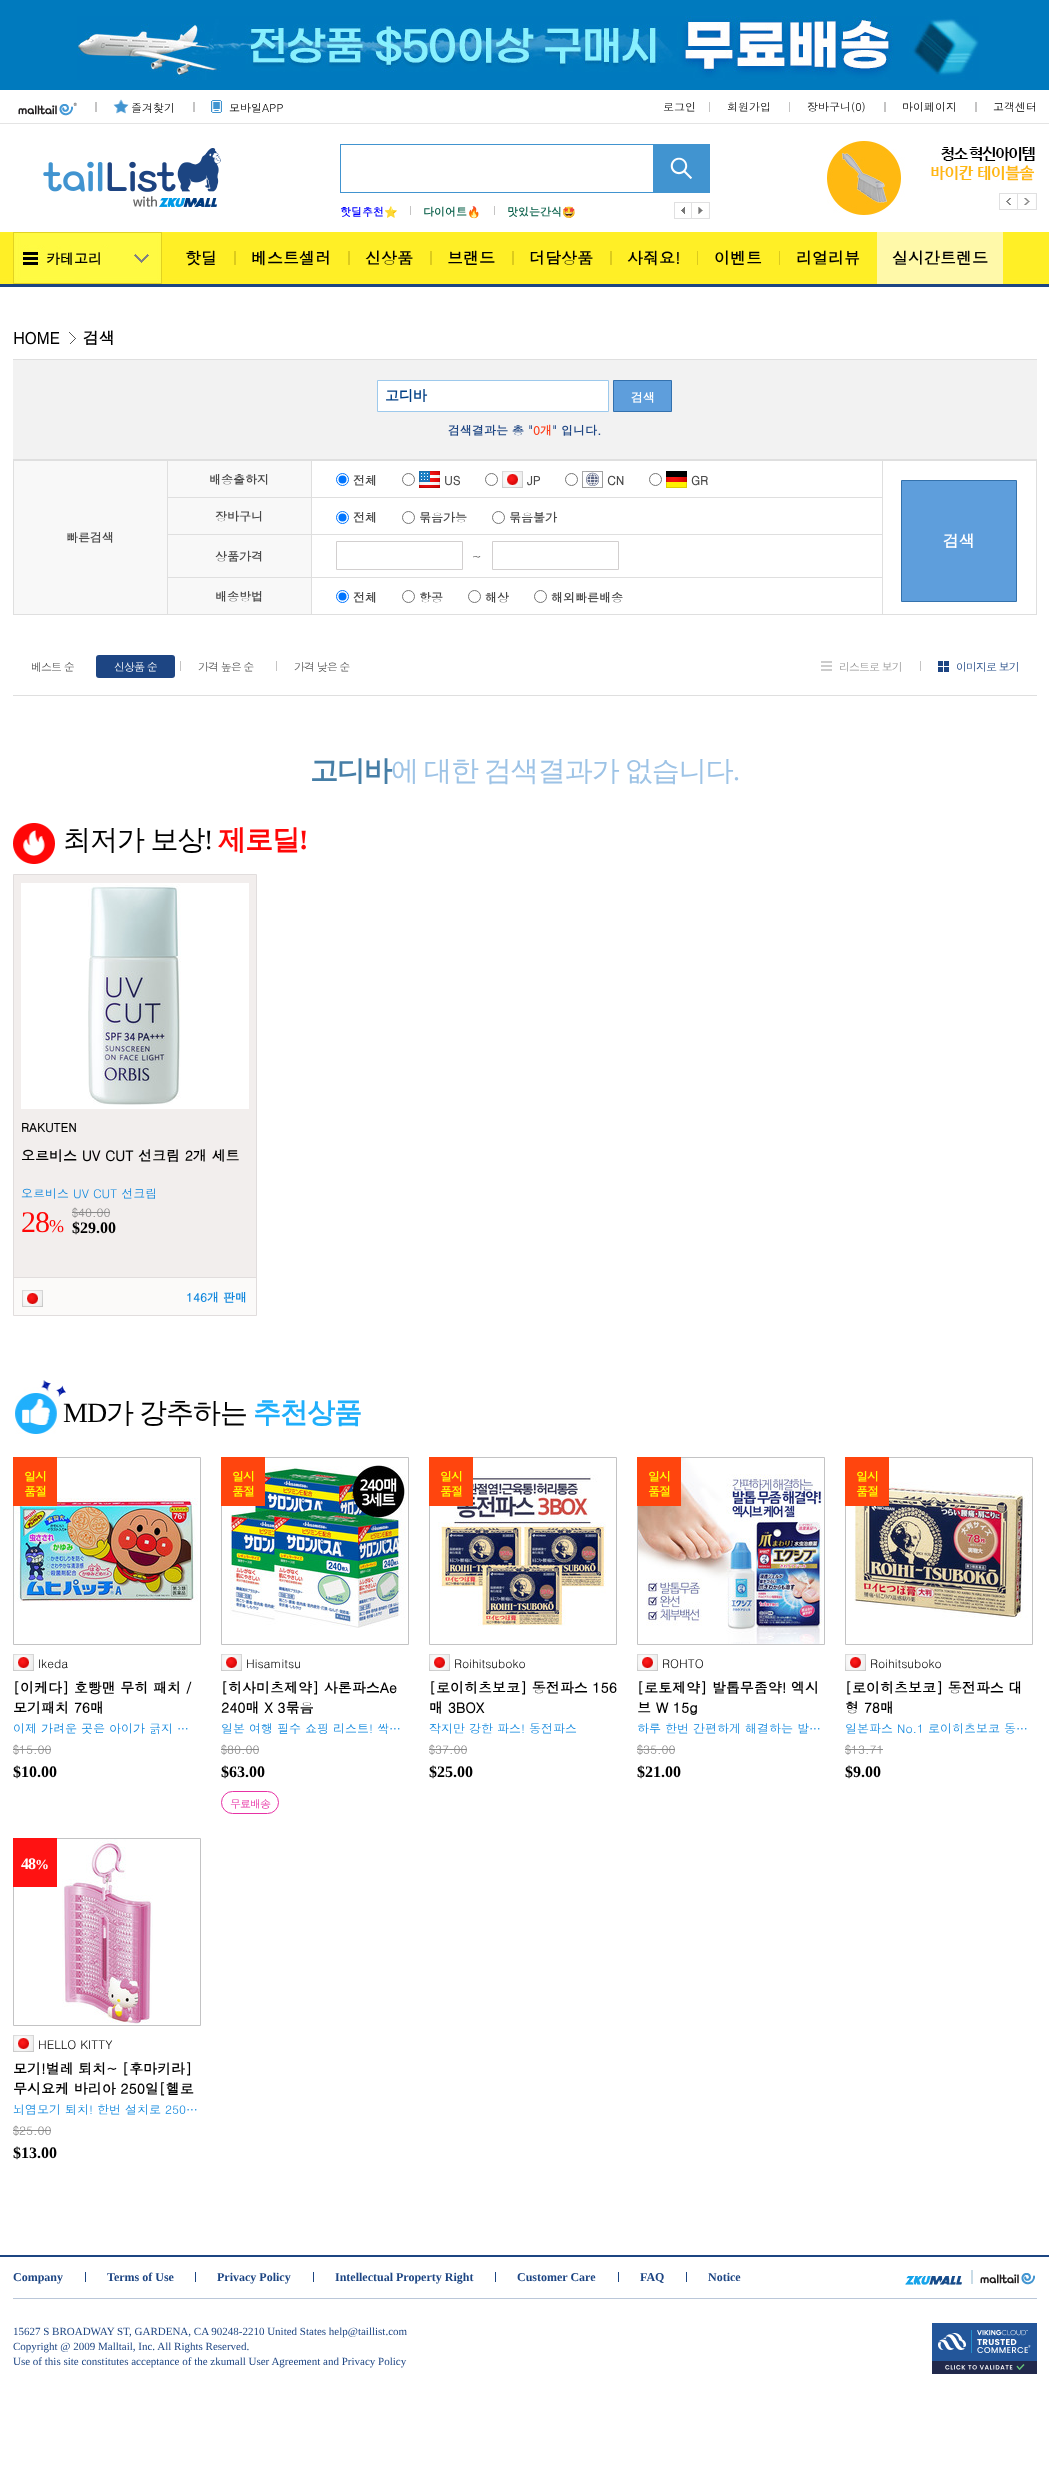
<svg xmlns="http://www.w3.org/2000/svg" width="1049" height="2488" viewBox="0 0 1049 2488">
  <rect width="100%" height="100%" fill="#fff"/>
  <path d="M0 0h1049v90H0z" fill="#007abe"/>
  <image x="77" y="16" width="902" height="64" href="img/1.png"/>
  <image x="0" y="123" width="1049" height="164" href="img/2.png"/>
  <image x="18" y="102" width="59" height="14" href="img/3.png"/>
  <path d="M95 102h2v10H95z" fill="#c5c4c4"/>
  <image x="113" y="99" width="16" height="15" href="img/4.png"/>
  <path d="M193 102h2v10H193z" fill="#c5c4c4"/>
  <image x="211" y="100" width="11" height="13" href="img/5.png"/>
  <path d="M709 102h1v10H709z" fill="#c5c4c4"/>
  <path d="M789 102h1v10H789z" fill="#c5c4c4"/>
  <path d="M884 102h2v10H884z" fill="#c5c4c4"/>
  <path d="M975 102h2v10H975z" fill="#c5c4c4"/>
  <image x="43" y="148" width="178" height="59" href="img/6.png"/>
  <image x="827" y="141" width="208" height="74" href="img/7.png"/>
  <image x="999" y="193" width="19" height="17" href="img/8.png"/>
  <image x="1018" y="193" width="19" height="17" href="img/9.png"/>
  <path d="M340 144h370v49H340z" fill="#4194d0"/>
  <path d="M341 145h312v47H341z" fill="#fff"/>
  <image x="670" y="157" width="22" height="22" href="img/10.png"/>
  <path d="M410 206h1v9H410z" fill="#c5c4c4"/>
  <path d="M494 206h1v9H494z" fill="#c5c4c4"/>
  <image x="674" y="202" width="18" height="17" href="img/11.png"/>
  <image x="692" y="202" width="18" height="17" href="img/12.png"/>
  <image x="13" y="232" width="149" height="52" href="img/13.png"/>
  <image x="234" y="251" width="2" height="14" href="img/14.png"/>
  <image x="348" y="251" width="2" height="14" href="img/14.png"/>
  <image x="430" y="251" width="2" height="14" href="img/14.png"/>
  <image x="512" y="251" width="2" height="14" href="img/14.png"/>
  <image x="610" y="251" width="2" height="14" href="img/14.png"/>
  <image x="697" y="251" width="1" height="14" href="img/15.png"/>
  <image x="779" y="251" width="1" height="14" href="img/15.png"/>
  <path d="M877 232h126v52H877z" fill="#fff9a9"/>
  <image x="69" y="332" width="7" height="12" href="img/16.png"/>
  <path d="M13 360h1024v99H13z" fill="#f2f2f2"/>
  <path d="M13 359h1024v1H13z" fill="#dfdfdf"/>
  <path d="M13 459h1024v2H13z" fill="#dfdfdf"/>
  <path d="M377.5 380.5h231v31H377.5z" fill="#fff" stroke="#9dc9ec"/>
  <path d="M613.5 380.5h58v31H613.5z" fill="#5e9edc" stroke="#3371ae"/>
  <path d="M1036 460h1v155H1036z" fill="#dfdfdf"/>
  <path d="M13 460h1v155H13z" fill="#dfdfdf"/>
  <path d="M168 461h143v36H168z" fill="#f8f8f8"/>
  <path d="M311 614h726v1H311z" fill="#dfdfdf"/>
  <path d="M311 577h1v38H311z" fill="#dfdfdf"/>
  <path d="M311 577h572v1H311z" fill="#dfdfdf"/>
  <path d="M311 534h1v44H311z" fill="#dfdfdf"/>
  <path d="M311 534h572v1H311z" fill="#dfdfdf"/>
  <path d="M882 460h1v155H882z" fill="#dfdfdf"/>
  <path d="M311 497h1v38H311z" fill="#dfdfdf"/>
  <path d="M311 497h572v1H311z" fill="#dfdfdf"/>
  <path d="M311 460h1v38H311z" fill="#dfdfdf"/>
  <path d="M167 497h145v1H167z" fill="#dfdfdf"/>
  <circle cx="342.5" cy="479.5" r="6" fill="none" stroke="#0075ff"/>
  <circle cx="342.5" cy="479.5" r="4" fill="#0075ff"/>
  <circle cx="408.5" cy="479.5" r="6" fill="none" stroke="#767676"/>
  <image x="419" y="471" width="21" height="17" href="img/17.png"/>
  <circle cx="491.5" cy="479.5" r="6" fill="none" stroke="#767676"/>
  <image x="502" y="471" width="21" height="17" href="img/18.png"/>
  <circle cx="571.5" cy="479.5" r="6" fill="none" stroke="#767676"/>
  <image x="582" y="471" width="21" height="17" href="img/19.png"/>
  <circle cx="655.5" cy="479.5" r="6" fill="none" stroke="#767676"/>
  <image x="666" y="471" width="21" height="17" href="img/20.png"/>
  <path d="M14 461h153v153H14z" fill="#f8f8f8"/>
  <path d="M167 534h145v1H167z" fill="#dfdfdf"/>
  <path d="M167 577h145v1H167z" fill="#dfdfdf"/>
  <path d="M167 614h145v1H167z" fill="#dfdfdf"/>
  <path d="M167 460h1v155H167z" fill="#dfdfdf"/>
  <path d="M13 614h155v1H13z" fill="#dfdfdf"/>
  <path d="M901.5 480.5h115v121H901.5z" fill="#5e9edc" stroke="#3472ad"/>
  <path d="M168 498h143v36H168z" fill="#f8f8f8"/>
  <circle cx="342.5" cy="517.5" r="6" fill="none" stroke="#0075ff"/>
  <circle cx="342.5" cy="517.5" r="4" fill="#0075ff"/>
  <circle cx="408.5" cy="517.5" r="6" fill="none" stroke="#767676"/>
  <circle cx="498.5" cy="517.5" r="6" fill="none" stroke="#767676"/>
  <path d="M168 535h143v42H168z" fill="#f8f8f8"/>
  <path d="M336.5 541.5h126v28H336.5z" fill="none" stroke="#d2cfcf"/>
  <path d="M492.5 541.5h126v28H492.5z" fill="none" stroke="#d2cfcf"/>
  <path d="M168 578h143v36H168z" fill="#f8f8f8"/>
  <circle cx="342.5" cy="596.5" r="6" fill="none" stroke="#0075ff"/>
  <circle cx="342.5" cy="596.5" r="4" fill="#0075ff"/>
  <circle cx="408.5" cy="596.5" r="6" fill="none" stroke="#767676"/>
  <circle cx="474.5" cy="596.5" r="6" fill="none" stroke="#767676"/>
  <circle cx="540.5" cy="596.5" r="6" fill="none" stroke="#767676"/>
  <path d="M13 695h1024v1H13z" fill="#dfdfdf"/>
  <rect x="96" y="655" width="79" height="23" rx="3" fill="#1d4583"/>
  <path d="M180 661h1v10H180z" fill="#c5c4c4"/>
  <path d="M276 661h1v10H276z" fill="#c5c4c4"/>
  <image x="821" y="661" width="11" height="10" href="img/21.png"/>
  <path d="M920 661h1v10H920z" fill="#c5c4c4"/>
  <image x="938" y="661" width="11" height="11" href="img/22.png"/>
  <image x="13" y="823" width="42" height="41" href="img/23.png"/>
  <path d="M14 875h242v402H14z" fill="#f2eeed"/>
  <path d="M13.5 874.5h243v441H13.5z" fill="none" stroke="#e1dddd"/>
  <path d="M21 883h228v226H21z" fill="#fff"/>
  <image x="88" y="884" width="93" height="221" href="img/24.png"/>
  <path d="M72 1212h38v1H72z" fill="#888"/>
  <path d="M14 1278h242v37H14z" fill="#fbfaf9"/>
  <path d="M14 1277h242v1H14z" fill="#e1dddd"/>
  <image x="22" y="1290" width="21" height="17" href="img/18.png"/>
  <image x="15" y="1380" width="51" height="54" href="img/25.png"/>
  <path d="M13.5 1457.5h187v187H13.5z" fill="none" stroke="#c3c3c4"/>
  <image x="14" y="1498" width="184" height="104" href="img/26.png"/>
  <path d="M13 1457h44v49H13z" fill="#ff450e"/>
  <image x="13" y="1654" width="21" height="17" href="img/18.png"/>
  <path d="M13 1749h38v1H13z" fill="#888"/>
  <path d="M221.5 1457.5h187v187H221.5z" fill="none" stroke="#c3c3c4"/>
  <image x="230" y="1465" width="176" height="163" href="img/27.png"/>
  <path d="M221 1457h44v49H221z" fill="#ff450e"/>
  <image x="221" y="1654" width="21" height="17" href="img/18.png"/>
  <path d="M221 1749h38v1H221z" fill="#888"/>
  <rect x="221.5" y="1791.5" width="57" height="22" rx="11" fill="none" stroke="#e732a5"/>
  <path d="M429.5 1457.5h187v187H429.5z" fill="none" stroke="#c3c3c4"/>
  <image x="438" y="1474" width="168" height="152" href="img/28.png"/>
  <path d="M429 1457h44v49H429z" fill="#ff450e"/>
  <image x="429" y="1654" width="21" height="17" href="img/18.png"/>
  <path d="M429 1749h38v1H429z" fill="#888"/>
  <path d="M637.5 1457.5h187v187H637.5z" fill="none" stroke="#c3c3c4"/>
  <image x="638" y="1458" width="184" height="186" href="img/29.png"/>
  <path d="M637 1457h44v49H637z" fill="#ff450e"/>
  <image x="637" y="1654" width="21" height="17" href="img/18.png"/>
  <path d="M637 1749h38v1H637z" fill="#888"/>
  <path d="M845.5 1457.5h187v187H845.5z" fill="none" stroke="#c3c3c4"/>
  <image x="854" y="1482" width="176" height="136" href="img/30.png"/>
  <path d="M845 1457h44v49H845z" fill="#ff450e"/>
  <image x="845" y="1654" width="21" height="17" href="img/18.png"/>
  <path d="M845 1749h38v1H845z" fill="#888"/>
  <path d="M13.5 1838.5h187v187H13.5z" fill="none" stroke="#c3c3c4"/>
  <path d="M13 1838h44v49H13z" fill="#ff1212"/>
  <image x="62" y="1839" width="91" height="185" href="img/31.png"/>
  <image x="13" y="2035" width="21" height="17" href="img/18.png"/>
  <path d="M13 2130h38v1H13z" fill="#888"/>
  <path d="M0 2255h1049v2H0z" fill="#1c4582"/>
  <path d="M13 2298h1024v1H13z" fill="#bac7d9"/>
  <path d="M85 2272h1v10H85z" fill="#1c4582"/>
  <path d="M195 2272h1v10H195z" fill="#1c4582"/>
  <path d="M313 2272h1v10H313z" fill="#1c4582"/>
  <path d="M495 2272h1v10H495z" fill="#1c4582"/>
  <path d="M618 2272h1v10H618z" fill="#1c4582"/>
  <path d="M686 2272h1v10H686z" fill="#1c4582"/>
  <image x="905" y="2276" width="57" height="9" href="img/32.png"/>
  <path d="M971 2270h2v14H971z" fill="#c9dce7"/>
  <image x="980" y="2273" width="55" height="12" href="img/33.png"/>
  <image x="932" y="2323" width="105" height="51" href="img/34.png"/>
  <g font-family="Dotum" font-size="11" fill="#000">
    <text x="131" y="112">즐겨찾기</text>
    <text x="229" y="112">모바일APP</text>
    <text x="663" y="111">로그인</text>
    <text x="727" y="111">회원가입</text>
    <text x="807" y="111">장바구니(0)</text>
    <text x="902" y="111">마이페이지</text>
    <text x="993" y="111">고객센터</text>
  </g>
  <text x="340" y="216" font-family="Dotum" font-size="11" font-weight="bold" fill="#00f">핫딜추천</text>
  <text x="384" y="216" font-family="Noto Color Emoji" font-size="11" font-weight="bold" fill="#00f">⭐</text>
  <text x="423" y="216" font-family="Dotum" font-size="11" font-weight="bold" fill="#0b614b">다이어트</text>
  <text x="467" y="216" font-family="Noto Color Emoji" font-size="11" font-weight="bold" fill="#0b614b">🔥</text>
  <text x="507" y="216" font-family="Dotum" font-size="11" font-weight="bold" fill="#0b614b">맛있는간식</text>
  <text x="562" y="216" font-family="Noto Color Emoji" font-size="11" font-weight="bold" fill="#0b614b">🤩</text>
  <text x="46" y="264" font-family="Dotum" font-size="14" font-weight="bold" fill="#000">카테고리</text>
  <g font-family="Dotum" font-size="16" font-weight="bold" fill="#000">
    <text x="185" y="264">핫딜</text>
    <text x="251" y="264">베스트셀러</text>
    <text x="365" y="264">신상품</text>
    <text x="447" y="264">브랜드</text>
    <text x="529" y="264">더담상품</text>
    <text x="627" y="264">사줘요!</text>
    <text x="714" y="264">이벤트</text>
    <text x="796" y="264">리얼리뷰</text>
    <text x="892" y="264">실시간트렌드</text>
    <text x="13" y="344">HOME</text>
    <text x="83" y="344">검색</text>
  </g>
  <text x="385" y="400" font-family="WenQuanYi Zen Hei" font-size="14" font-weight="bold" fill="#003f85">고디바</text>
  <text x="631" y="402" font-family="Dotum" font-size="12" font-weight="bold" fill="#fff">검색</text>
  <text x="448" y="435" font-family="Dotum" font-size="12" font-weight="bold" fill="#1d4583">검색결과는 총 "</text>
  <text x="533" y="435" font-family="Dotum" font-size="12" font-weight="bold" fill="#fc3e1a">0개</text>
  <text x="552" y="435" font-family="Dotum" font-size="12" font-weight="bold" fill="#1d4583">" 입니다.</text>
  <g font-family="Dotum" font-size="12" font-weight="bold" fill="#494949">
    <text x="209" y="484">배송출하지</text>
    <text x="353" y="485">전체</text>
    <text x="444" y="485">US</text>
    <text x="527" y="485">JP</text>
    <text x="607" y="485">CN</text>
    <text x="691" y="485">GR</text>
    <text x="66" y="542">빠른검색</text>
  </g>
  <text x="943" y="547" font-family="Dotum" font-size="16" font-weight="bold" fill="#fff">검색</text>
  <g font-family="Dotum" font-size="12" font-weight="bold" fill="#494949">
    <text x="215" y="521">장바구니</text>
    <text x="353" y="522">전체</text>
    <text x="419" y="522">묶음가능</text>
    <text x="509" y="522">묶음불가</text>
    <text x="215" y="561">상품가격</text>
  </g>
  <text x="472" y="561" font-family="Dotum" font-size="12" fill="#494949">~</text>
  <g font-family="Dotum" font-size="12" font-weight="bold" fill="#494949">
    <text x="215" y="601">배송방법</text>
    <text x="353" y="602">전체</text>
    <text x="419" y="602">항공</text>
    <text x="485" y="602">해상</text>
    <text x="551" y="602">해외빠른배송</text>
  </g>
  <text x="31" y="671" font-family="Dotum" font-size="11" letter-spacing="-1" fill="#555">베스트 순</text>
  <text x="114" y="671" font-family="Dotum" font-size="11" letter-spacing="-1" fill="#fff">신상품 순</text>
  <g font-family="Dotum" font-size="11" letter-spacing="-1" fill="#555">
    <text x="198" y="671">가격 높은 순</text>
    <text x="294" y="671">가격 낮은 순</text>
  </g>
  <text x="839" y="671" font-family="Dotum" font-size="11" letter-spacing="-1" fill="#999">리스트로 보기</text>
  <text x="956" y="671" font-family="Dotum" font-size="11" letter-spacing="-1" fill="#1d4583">이미지로 보기</text>
  <text x="310" y="780" font-family="WenQuanYi Zen Hei" font-size="28" font-weight="bold" letter-spacing="-1" fill="#467ea6">고디바</text>
  <text x="391" y="780" word-spacing="-1.5" font-family="WenQuanYi Zen Hei" font-size="28" font-weight="500" letter-spacing="-1" fill="#9dc3e6">에 대한 검색결과가 없습니다</text>
  <text x="733" y="780" font-family="Liberation Serif" font-size="28" letter-spacing="-1" fill="#9dc3e6">.</text>
  <text x="63" y="849" word-spacing="-1" font-family="WenQuanYi Zen Hei" font-size="28" font-weight="500" letter-spacing="-1" fill="#000">최저가 보상</text>
  <text x="204" y="849" font-family="Liberation Serif" font-size="28" letter-spacing="-1" fill="#000">!</text>
  <text x="218" y="849" font-family="WenQuanYi Zen Hei" font-size="28" font-weight="bold" letter-spacing="-1" fill="#ff0707">제로딜</text>
  <text x="299" y="849" font-family="Liberation Serif" font-size="28" font-weight="bold" letter-spacing="-1" fill="#ff0707">!</text>
  <text x="21" y="1132" font-family="Dotum" font-size="12" font-weight="bold" fill="#000">RAKUTEN</text>
  <text x="21" y="1161" font-family="Dotum" font-size="14" font-weight="bold" fill="#000">오르비스 UV CUT 선크림 2개 세트</text>
  <text x="21" y="1198" font-family="Dotum" font-size="12" fill="#0e86dd">오르비스 UV CUT 선크림</text>
  <text x="21" y="1232" font-family="Liberation Serif" font-size="30" letter-spacing="-1" fill="#ff0707">28</text>
  <text x="49" y="1232" font-family="Liberation Serif" font-size="18" letter-spacing="-1" fill="#ff0707">%</text>
  <text x="72" y="1217" font-family="Dotum" font-size="12" fill="#888">$40.00</text>
  <text x="72" y="1233" font-family="Liberation Serif" font-size="16" font-weight="bold" fill="#000">$29.00</text>
  <text x="186" y="1302" font-family="Dotum" font-size="12" font-weight="bold" fill="#0e86dd">146개 판매</text>
  <text x="63" y="1422" font-family="Liberation Serif" font-size="28" letter-spacing="-1" fill="#000">MD</text>
  <text x="106" y="1422" word-spacing="-1.5" font-family="WenQuanYi Zen Hei" font-size="28" font-weight="500" letter-spacing="-1" fill="#000">가 강추하는</text>
  <text x="253" y="1422" font-family="WenQuanYi Zen Hei" font-size="28" font-weight="bold" letter-spacing="-1" fill="#20affb">추천상품</text>
  <g font-family="Dotum" font-size="12" font-weight="bold" letter-spacing="-1" fill="#ff0">
    <text x="24" y="1481">일시</text>
    <text x="24" y="1496">품절</text>
  </g>
  <text x="38" y="1668" font-family="Dotum" font-size="12" fill="#000">Ikeda</text>
  <g font-family="Dotum" font-size="14" font-weight="bold" fill="#000">
    <text x="13" y="1693">[이케다] 호빵맨 무히 패치 /</text>
    <text x="13" y="1713">모기패치 76매</text>
  </g>
  <text x="13" y="1733" font-family="Dotum" font-size="12" fill="#0e86dd">이제 가려운 곳은 아이가 긁지 …</text>
  <text x="13" y="1754" font-family="Dotum" font-size="12" fill="#888">$15.00</text>
  <text x="13" y="1777" font-family="Liberation Serif" font-size="16" font-weight="bold" fill="#000">$10.00</text>
  <g font-family="Dotum" font-size="12" font-weight="bold" letter-spacing="-1" fill="#ff0">
    <text x="232" y="1481">일시</text>
    <text x="232" y="1496">품절</text>
  </g>
  <text x="246" y="1668" font-family="Dotum" font-size="12" fill="#000">Hisamitsu</text>
  <g font-family="Dotum" font-size="14" font-weight="bold" fill="#000">
    <text x="221" y="1693">[히사미츠제약] 사론파스Ae</text>
    <text x="221" y="1713">240매 X 3묶음</text>
  </g>
  <text x="221" y="1733" font-family="Dotum" font-size="12" fill="#0e86dd">일본 여행 필수 쇼핑 리스트! 싹…</text>
  <text x="221" y="1754" font-family="Dotum" font-size="12" fill="#888">$80.00</text>
  <text x="221" y="1777" font-family="Liberation Serif" font-size="16" font-weight="bold" fill="#000">$63.00</text>
  <text x="230" y="1808" font-family="Dotum" font-size="11" letter-spacing="-1" fill="#e732a5">무료배송</text>
  <g font-family="Dotum" font-size="12" font-weight="bold" letter-spacing="-1" fill="#ff0">
    <text x="440" y="1481">일시</text>
    <text x="440" y="1496">품절</text>
  </g>
  <text x="454" y="1668" font-family="Dotum" font-size="12" fill="#000">Roihitsuboko</text>
  <g font-family="Dotum" font-size="14" font-weight="bold" fill="#000">
    <text x="429" y="1693">[로이히츠보코] 동전파스 156</text>
    <text x="429" y="1713">매 3BOX</text>
  </g>
  <text x="429" y="1733" font-family="Dotum" font-size="12" fill="#0e86dd">작지만 강한 파스! 동전파스</text>
  <text x="429" y="1754" font-family="Dotum" font-size="12" fill="#888">$37.00</text>
  <text x="429" y="1777" font-family="Liberation Serif" font-size="16" font-weight="bold" fill="#000">$25.00</text>
  <g font-family="Dotum" font-size="12" font-weight="bold" letter-spacing="-1" fill="#ff0">
    <text x="648" y="1481">일시</text>
    <text x="648" y="1496">품절</text>
  </g>
  <text x="662" y="1668" font-family="Dotum" font-size="12" fill="#000">ROHTO</text>
  <g font-family="Dotum" font-size="14" font-weight="bold" fill="#000">
    <text x="637" y="1693">[로토제약] 발톱무좀약! 엑시</text>
    <text x="637" y="1713">브 W 15g</text>
  </g>
  <text x="637" y="1733" font-family="Dotum" font-size="12" fill="#0e86dd">하루 한번 간편하게 해결하는 발…</text>
  <text x="637" y="1754" font-family="Dotum" font-size="12" fill="#888">$35.00</text>
  <text x="637" y="1777" font-family="Liberation Serif" font-size="16" font-weight="bold" fill="#000">$21.00</text>
  <g font-family="Dotum" font-size="12" font-weight="bold" letter-spacing="-1" fill="#ff0">
    <text x="856" y="1481">일시</text>
    <text x="856" y="1496">품절</text>
  </g>
  <text x="870" y="1668" font-family="Dotum" font-size="12" fill="#000">Roihitsuboko</text>
  <g font-family="Dotum" font-size="14" font-weight="bold" fill="#000">
    <text x="845" y="1693">[로이히츠보코] 동전파스 대</text>
    <text x="845" y="1713">형 78매</text>
  </g>
  <text x="845" y="1733" font-family="Dotum" font-size="12" fill="#0e86dd">일본파스 No.1 로이히츠보코 동…</text>
  <text x="845" y="1754" font-family="Dotum" font-size="12" fill="#888">$13.71</text>
  <text x="845" y="1777" font-family="Liberation Serif" font-size="16" font-weight="bold" fill="#000">$9.00</text>
  <text x="21" y="1869" font-family="Liberation Serif" font-size="16" font-weight="bold" letter-spacing="-1" fill="#fff">48</text>
  <text x="35" y="1869" font-family="Liberation Serif" font-size="14" font-weight="bold" letter-spacing="-1" fill="#fff">%</text>
  <text x="38" y="2049" font-family="Dotum" font-size="12" fill="#000">HELLO KITTY</text>
  <g font-family="Dotum" font-size="14" font-weight="bold" fill="#000">
    <text x="13" y="2074">모기!벌레 퇴치~ [후마키라]</text>
    <text x="13" y="2094">무시요케 바리아 250일[헬로</text>
  </g>
  <text x="13" y="2114" font-family="Dotum" font-size="12" fill="#0e86dd">뇌염모기 퇴치! 한번 설치로 250…</text>
  <text x="13" y="2135" font-family="Dotum" font-size="12" fill="#888">$25.00</text>
  <text x="13" y="2158" font-family="Liberation Serif" font-size="16" font-weight="bold" fill="#000">$13.00</text>
  <g font-family="Liberation Serif" font-size="12" font-weight="bold" fill="#1d4583">
    <text x="13" y="2281">Company</text>
    <text x="107" y="2281">Terms of Use</text>
    <text x="217" y="2281">Privacy Policy</text>
    <text x="335" y="2281">Intellectual Property Right</text>
    <text x="517" y="2281">Customer Care</text>
    <text x="640" y="2281">FAQ</text>
    <text x="708" y="2281">Notice</text>
  </g>
  <g font-family="Liberation Serif" font-size="11" fill="#1d4583">
    <text x="13" y="2335">15627 S BROADWAY ST, GARDENA, CA 90248-2210 United States help@taillist.com</text>
    <text x="13" y="2350">Copyright @ 2009 Malltail, Inc. All Rights Reserved.</text>
    <text x="13" y="2365">Use of this site constitutes acceptance of the zkumall User Agreement and Privacy Policy</text>
  </g>
</svg>
